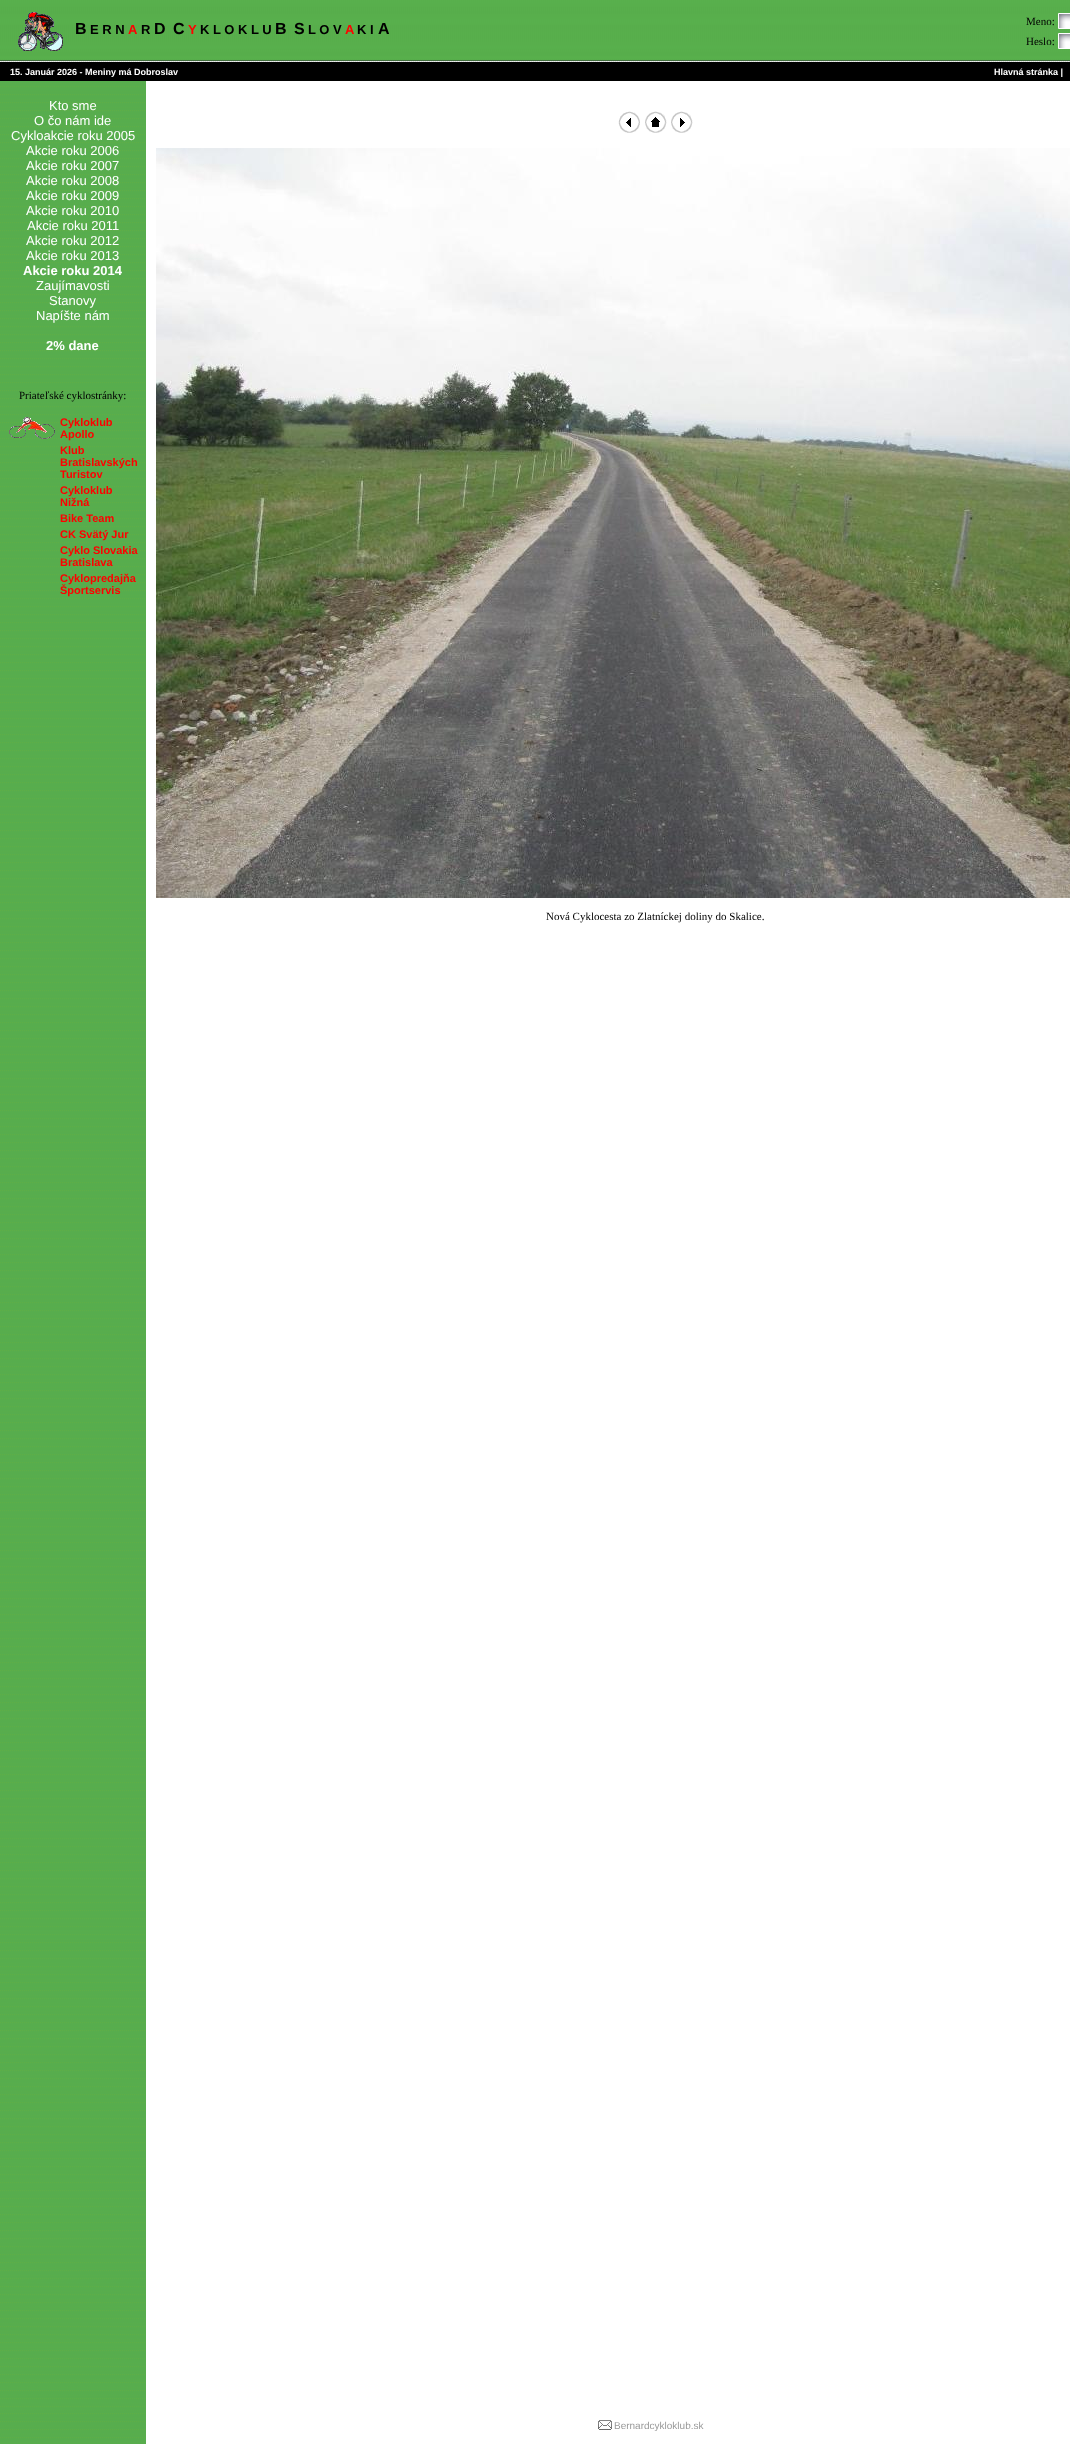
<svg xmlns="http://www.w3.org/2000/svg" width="1070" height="2444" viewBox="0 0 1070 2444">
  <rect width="100%" height="100%" fill="#fff"/>
  <image x="0" y="0" width="1070" height="62" href="img/1.png"/>
  <image x="18" y="12" width="45" height="39" href="img/2.png"/>
  <image x="1059" y="14" width="11" height="14" href="img/3.png"/>
  <path d="M1058.5 13.5h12v15H1058.5z" fill="none" stroke="#fff"/>
  <image x="1059" y="34" width="11" height="14" href="img/3.png"/>
  <path d="M1058.5 33.5h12v15H1058.5z" fill="none" stroke="#fff"/>
  <path d="M0 62h1070v19H0z" fill="#000"/>
  <image x="0" y="81" width="146" height="2327" href="img/4.png"/>
  <image x="9" y="417" width="46" height="22" href="img/5.png"/>
  <image x="618" y="111" width="22" height="22" href="img/6.png"/>
  <image x="645" y="111" width="22" height="22" href="img/7.png"/>
  <image x="671" y="111" width="22" height="22" href="img/8.png"/>
  <image x="156" y="148" width="914" height="750" href="img/9.png"/>
  <image x="0" y="2408" width="146" height="36" href="img/10.png"/>
  <image x="598" y="2420" width="14" height="10" href="img/11.png"/>
  <text x="75" y="34" font-family="Liberation Sans" font-size="16" font-weight="bold" fill="#000">B</text>
  <text x="90" y="34" font-family="Liberation Sans" font-size="13" font-weight="bold" fill="#000">E R N</text>
  <text x="128" y="34" font-family="Liberation Sans" font-size="13" font-weight="bold" fill="#f00">A</text>
  <text x="141" y="34" font-family="Liberation Sans" font-size="13" font-weight="bold" fill="#000">R</text>
  <g font-family="Liberation Sans" font-size="16" font-weight="bold" fill="#000">
    <text x="154" y="34">D</text>
    <text x="173" y="34">C</text>
  </g>
  <text x="188" y="34" font-family="Liberation Sans" font-size="13" font-weight="bold" fill="#f00">Y</text>
  <text x="200" y="34" font-family="Liberation Sans" font-size="13" font-weight="bold" fill="#000">K L O K L U</text>
  <g font-family="Liberation Sans" font-size="16" font-weight="bold" fill="#000">
    <text x="275" y="34">B</text>
    <text x="294" y="34">S</text>
  </g>
  <text x="308" y="34" font-family="Liberation Sans" font-size="13" font-weight="bold" fill="#000">L O V</text>
  <text x="345" y="34" font-family="Liberation Sans" font-size="13" font-weight="bold" fill="#f00">A</text>
  <text x="357" y="34" font-family="Liberation Sans" font-size="13" font-weight="bold" fill="#000">K I</text>
  <text x="378" y="34" font-family="Liberation Sans" font-size="16" font-weight="bold" fill="#000">A</text>
  <g font-family="Liberation Serif" font-size="11" fill="#000">
    <text x="1026" y="25">Meno:</text>
    <text x="1026" y="45">Heslo:</text>
  </g>
  <g font-family="Liberation Sans" font-size="9" font-weight="bold" fill="#fff">
    <text x="10" y="75">15. Január 2026 - Meniny má Dobroslav</text>
    <text x="994" y="75">Hlavná stránka |</text>
  </g>
  <g font-family="Liberation Sans" font-size="13" fill="#fff">
    <text x="49" y="110">Kto sme</text>
    <text x="34" y="125">O čo nám ide</text>
    <text x="11" y="140">Cykloakcie roku 2005</text>
    <text x="26" y="155">Akcie roku 2006</text>
    <text x="26" y="170">Akcie roku 2007</text>
    <text x="26" y="185">Akcie roku 2008</text>
    <text x="26" y="200">Akcie roku 2009</text>
    <text x="26" y="215">Akcie roku 2010</text>
    <text x="27" y="230">Akcie roku 2011</text>
    <text x="26" y="245">Akcie roku 2012</text>
    <text x="26" y="260">Akcie roku 2013</text>
  </g>
  <text x="23" y="275" font-family="Liberation Sans" font-size="13" font-weight="bold" fill="#fff">Akcie roku 2014</text>
  <g font-family="Liberation Sans" font-size="13" fill="#fff">
    <text x="36" y="290">Zaujímavosti</text>
    <text x="49" y="305">Stanovy</text>
    <text x="36" y="320">Napíšte nám</text>
  </g>
  <text x="46" y="350" font-family="Liberation Sans" font-size="13" font-weight="bold" fill="#fff">2% dane</text>
  <text x="19" y="399" font-family="Liberation Serif" font-size="11" fill="#000">Priateľské cyklostránky:</text>
  <g font-family="Liberation Sans" font-size="11" font-weight="bold" fill="#f00">
    <text x="60" y="426">Cykloklub</text>
    <text x="60" y="438">Apollo</text>
    <text x="60" y="454">Klub</text>
    <text x="60" y="466">Bratislavských</text>
    <text x="60" y="478">Turistov</text>
    <text x="60" y="494">Cykloklub</text>
    <text x="60" y="506">Nižná</text>
    <text x="60" y="522">Bike Team</text>
    <text x="60" y="538">CK Svätý Jur</text>
    <text x="60" y="554">Cyklo Slovakia</text>
    <text x="60" y="566">Bratislava</text>
    <text x="60" y="582">Cyklopredajňa</text>
    <text x="60" y="594">Športservis</text>
  </g>
  <text x="546" y="920" font-family="Liberation Serif" font-size="11" fill="#000">Nová Cyklocesta zo Zlatníckej doliny do Skalice.</text>
  <text x="614" y="2429" font-family="Liberation Sans" font-size="10" fill="#999">Bernardcykloklub.sk</text>
</svg>
